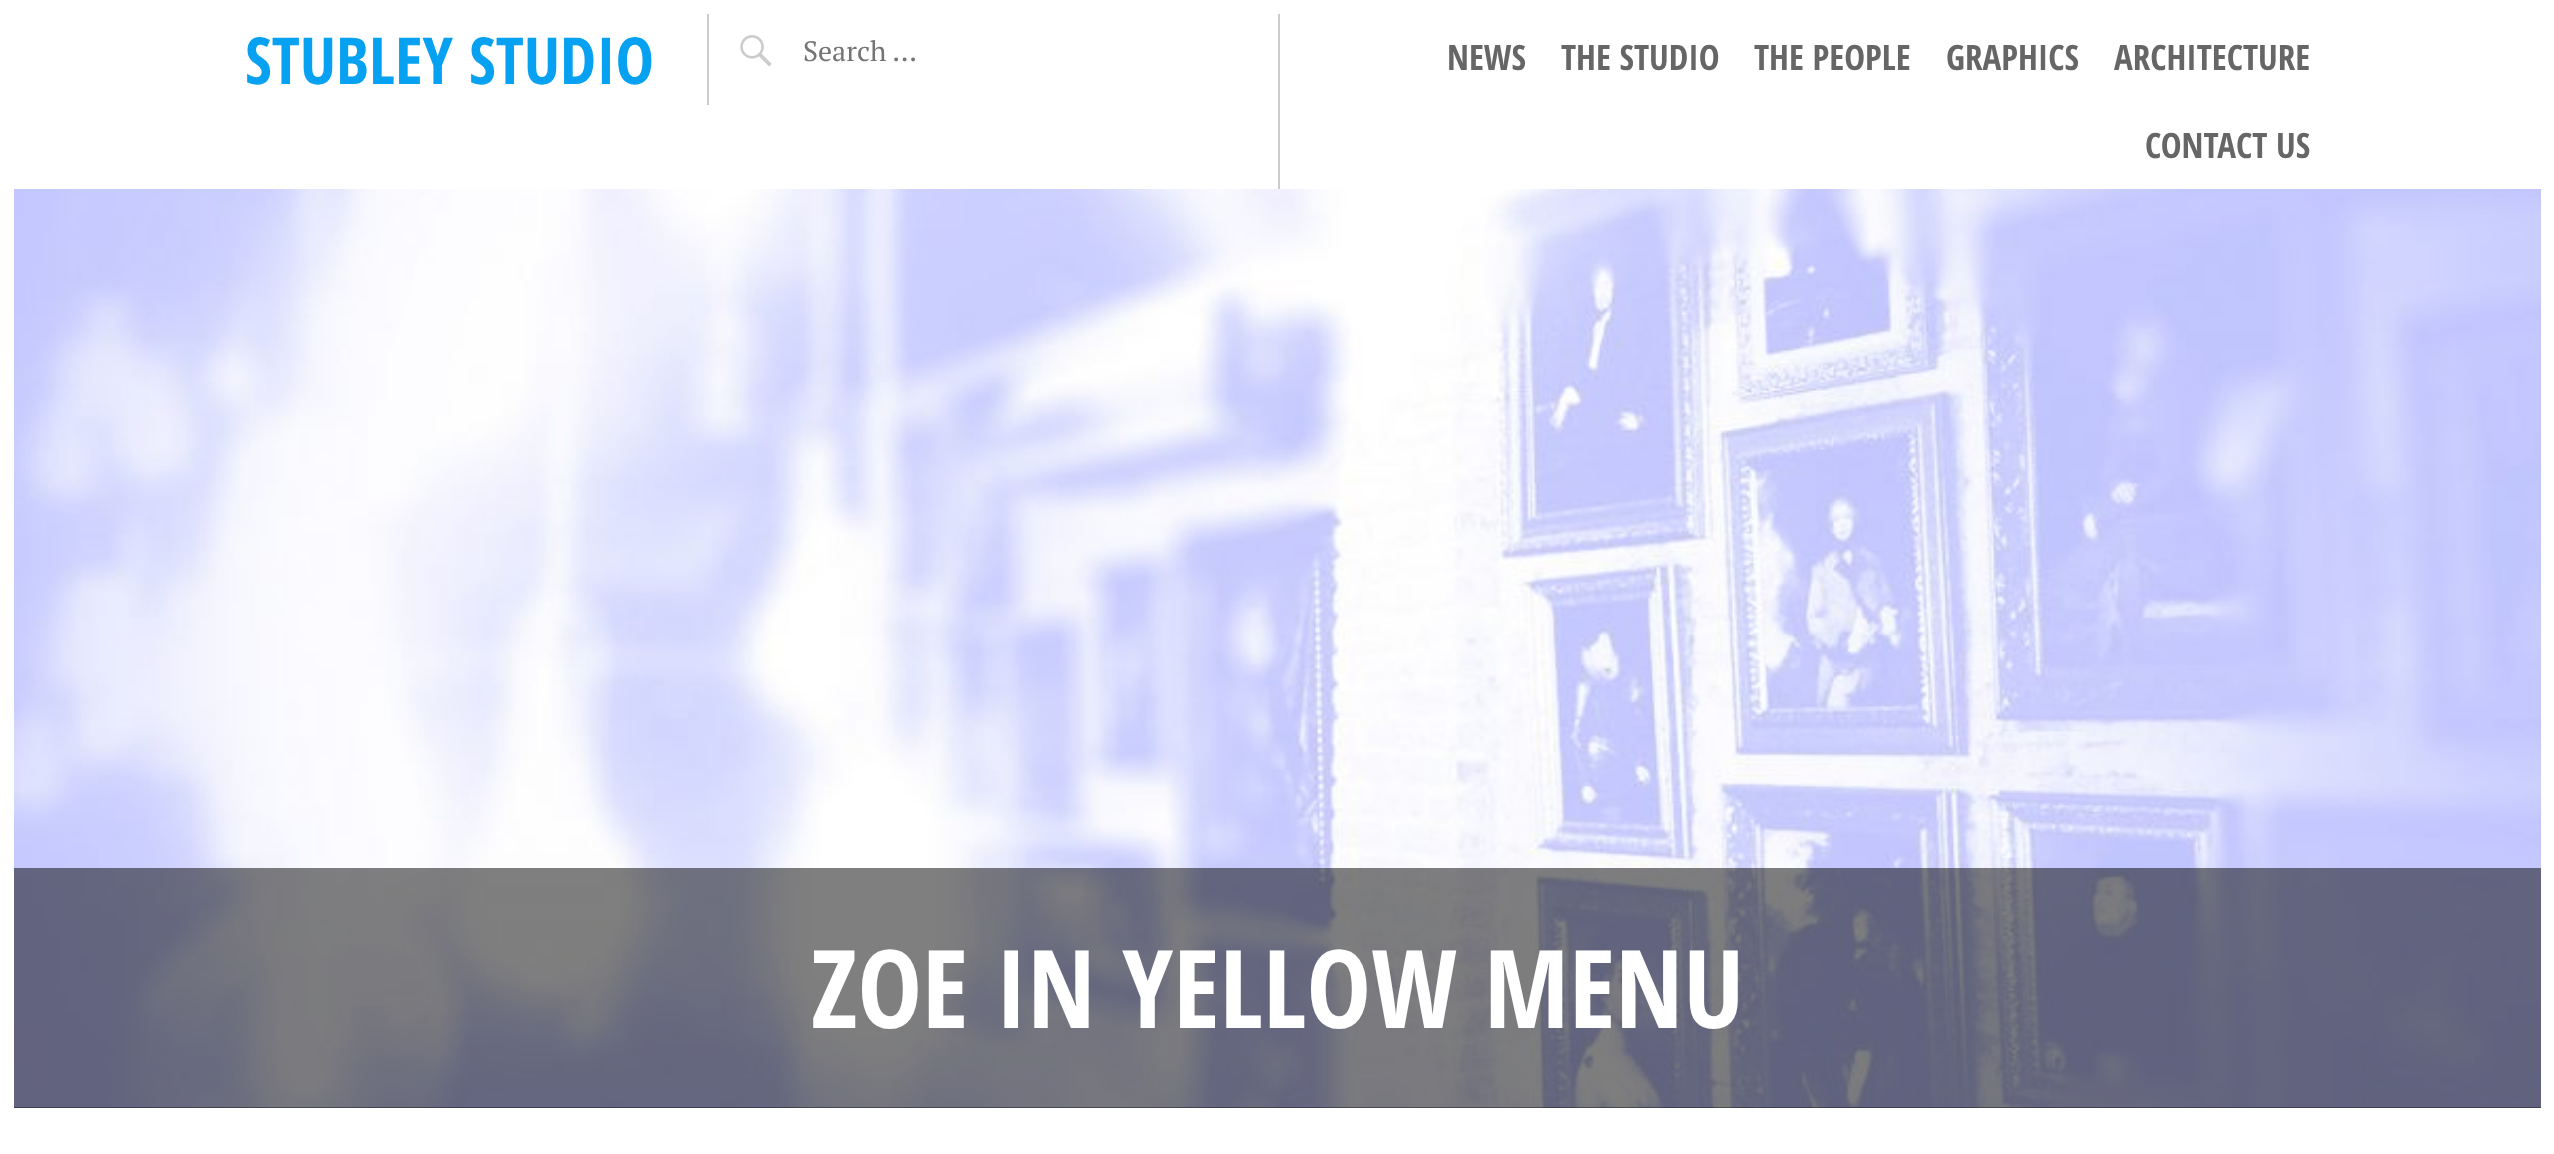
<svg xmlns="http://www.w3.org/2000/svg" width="2554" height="1154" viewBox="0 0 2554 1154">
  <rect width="100%" height="100%" fill="#fff"/>
  <path d="M707 14h2v91H707z" fill="#ccc"/>
  <image x="740" y="35" width="32" height="32" href="img/1.png"/>
  <path d="M1278 14h2v175H1278z" fill="#ccc"/>
  <path d="M14 1107h2527v1H14z" fill="#1e1e1e"/>
  <image x="14" y="189" width="2527" height="919" href="img/2.png"/>
  <path d="M14 868h2527v240H14z" fill="#00000080"/>
  <text x="245" y="84" font-family="Open Sans Condensed" font-size="64.75" font-weight="bold" fill="#07a1f2">STUBLEY STUDIO</text>
  <text x="803" y="61" font-family="PT Serif" font-size="28" fill="#757575">Search …</text>
  <g font-family="Open Sans Condensed" font-size="35" font-weight="bold" fill="#666">
    <text x="1447" y="70">NEWS</text>
    <text x="1561" y="70">THE STUDIO</text>
    <text x="1754" y="70">THE PEOPLE</text>
    <text x="1946" y="70">GRAPHICS</text>
    <text x="2114" y="70">ARCHITECTURE</text>
    <text x="2145" y="158">CONTACT US</text>
  </g>
  <text x="811" y="1028" font-family="Open Sans Condensed" font-size="108.5" font-weight="bold" fill="#fff">ZOE IN YELLOW MENU</text>
</svg>
